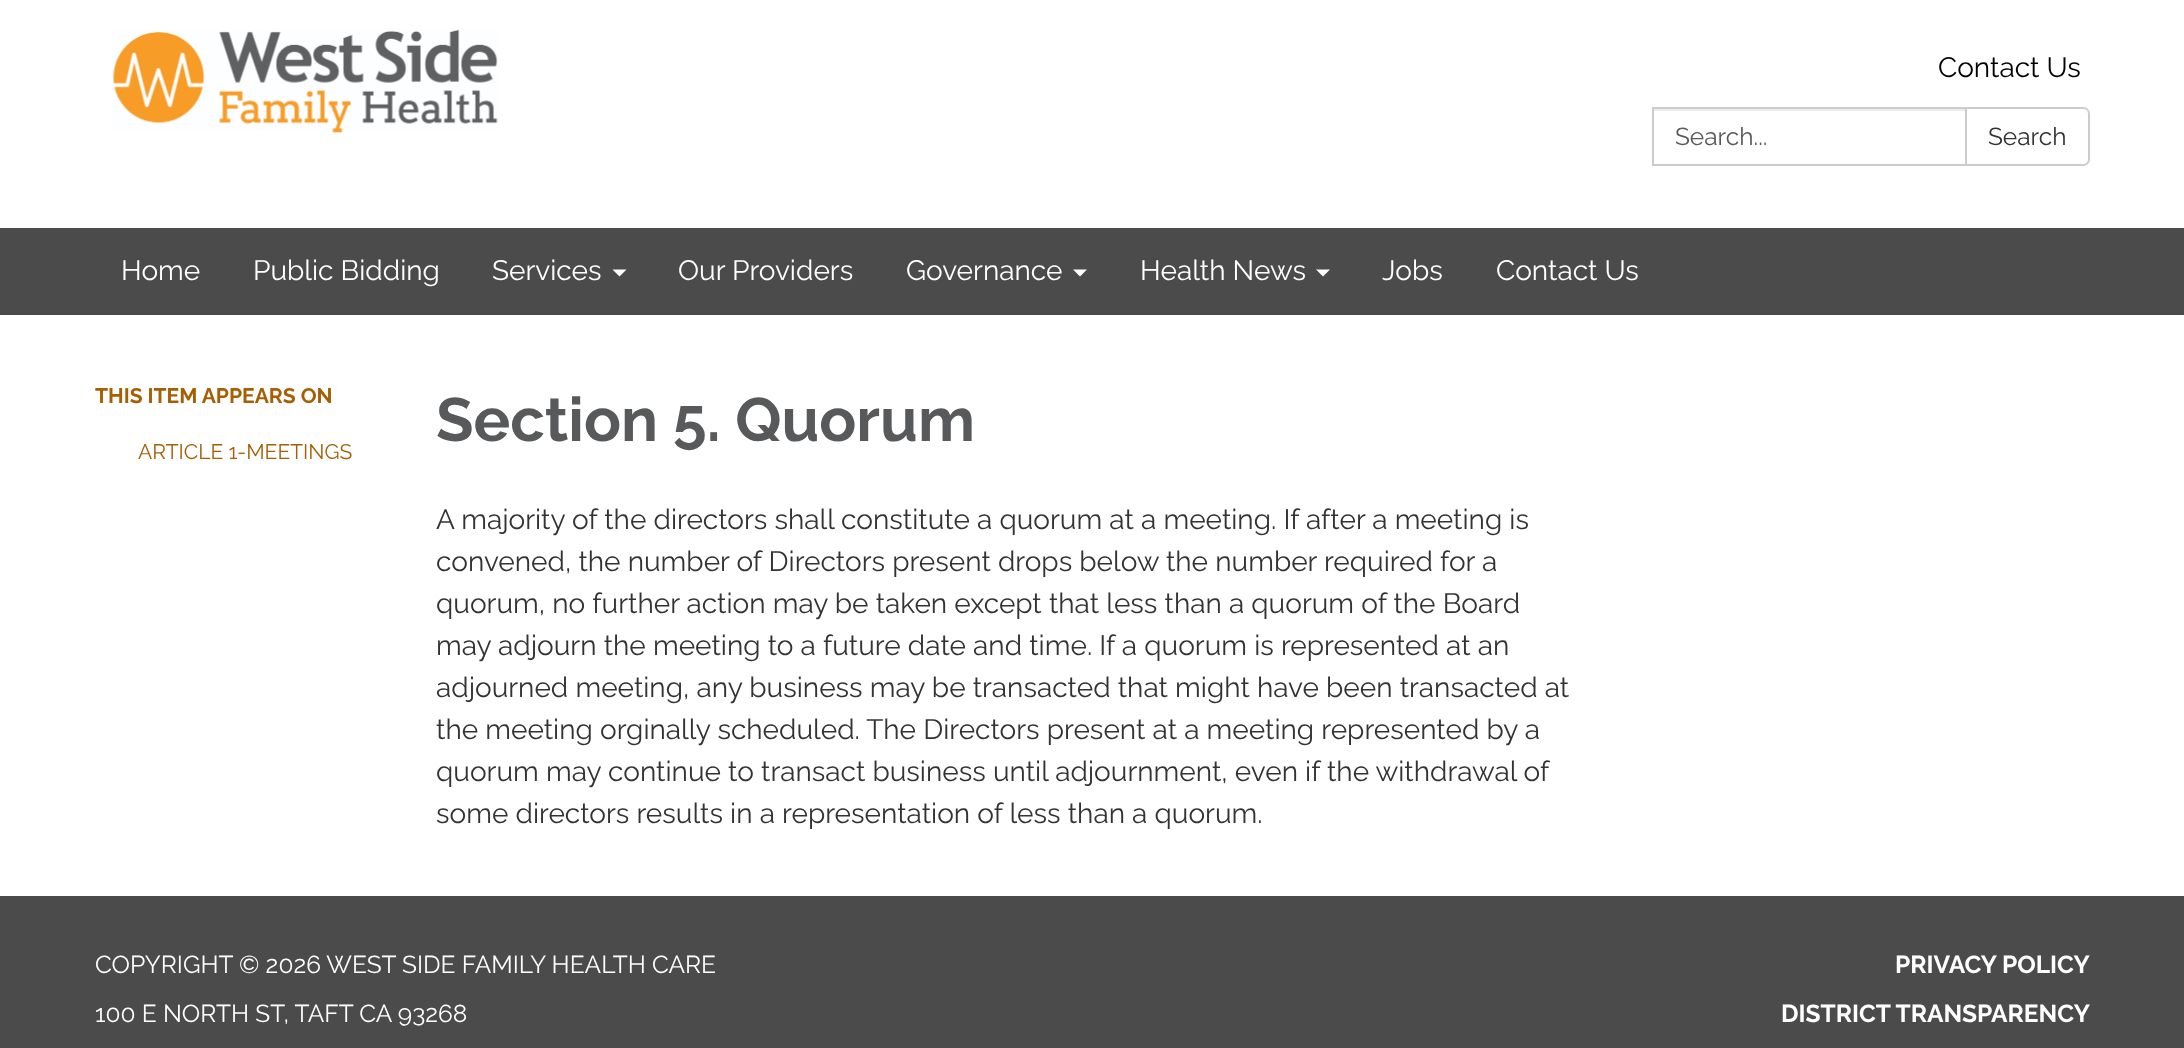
<svg xmlns="http://www.w3.org/2000/svg" width="2184" height="1048" viewBox="0 0 2184 1048">
  <rect width="100%" height="100%" fill="#4b4b4b"/>
  <path d="M0 0h2184v228H0z" fill="#fff"/>
  <image x="113" y="29" width="385" height="104" href="img/1.png"/>
  <path d="M1654 109h311v2H1654z" fill="#ececec"/>
  <path d="M1653 108h313v57H1653z" fill="none" stroke="#ccc" stroke-width="2"/>
  <path d="M1966 108H2083C2086.5 108 2089 110.5 2089 114V159C2089 162.5 2086.5 165 2083 165H1966Z" fill="#fff" stroke="#ccc" stroke-width="2"/>
  <path d="M612.5 269.5H626.5L619.5 276.5Z" fill="#fff"/>
  <path d="M1073 269.5H1087L1080 276.5Z" fill="#fff"/>
  <path d="M1316 269.5H1330L1323 276.5Z" fill="#fff"/>
  <path d="M0 315h2184v581H0z" fill="#fff"/>
  <text x="1938" y="77" font-family="Raleway" font-size="28" fill="#000">Contact Us</text>
  <text x="1675" y="145" font-family="Raleway" font-size="24.5" fill="#58595b">Search...</text>
  <text x="1988" y="145" font-family="Raleway" font-size="24.5" fill="#333">Search</text>
  <g font-family="Raleway" font-size="28" fill="#fff">
    <text x="121" y="280">Home</text>
    <text x="253" y="280">Public Bidding</text>
    <text x="492" y="280">Services</text>
    <text x="678" y="280">Our Providers</text>
    <text x="906" y="280">Governance</text>
    <text x="1140" y="280">Health News</text>
    <text x="1382" y="280">Jobs</text>
    <text x="1496" y="280">Contact Us</text>
  </g>
  <text x="95" y="403" font-family="Raleway" font-size="21" font-weight="bold" fill="#a65f03">THIS ITEM APPEARS ON</text>
  <text x="138" y="459" font-family="Raleway" font-size="21" fill="#a65f03">ARTICLE 1-MEETINGS</text>
  <text x="436" y="441" font-family="Raleway" font-size="61.25" font-weight="bold" fill="#58595b">Section 5. Quorum</text>
  <g font-family="Raleway" font-size="28" fill="#333">
    <text x="436" y="529">A majority of the directors shall constitute a quorum at a meeting. If after a meeting is</text>
    <text x="436" y="571">convened, the number of Directors present drops below the number required for a</text>
    <text x="436" y="613">quorum, no further action may be taken except that less than a quorum of the Board</text>
    <text x="436" y="655">may adjourn the meeting to a future date and time. If a quorum is represented at an</text>
    <text x="436" y="697">adjourned meeting, any business may be transacted that might have been transacted at</text>
    <text x="436" y="739">the meeting orginally scheduled. The Directors present at a meeting represented by a</text>
    <text x="436" y="781">quorum may continue to transact business until adjournment, even if the withdrawal of</text>
    <text x="436" y="823">some directors results in a representation of less than a quorum.</text>
  </g>
  <g font-family="Raleway" font-size="24.5" fill="#fff">
    <text x="95" y="973">COPYRIGHT © 2026 WEST SIDE FAMILY HEALTH CARE</text>
    <text x="95" y="1022">100 E NORTH ST, TAFT CA 93268</text>
  </g>
  <g font-family="Raleway" font-size="24.5" font-weight="bold" fill="#fff">
    <text x="1895" y="973">PRIVACY POLICY</text>
    <text x="1781" y="1022">DISTRICT TRANSPARENCY</text>
  </g>
</svg>
